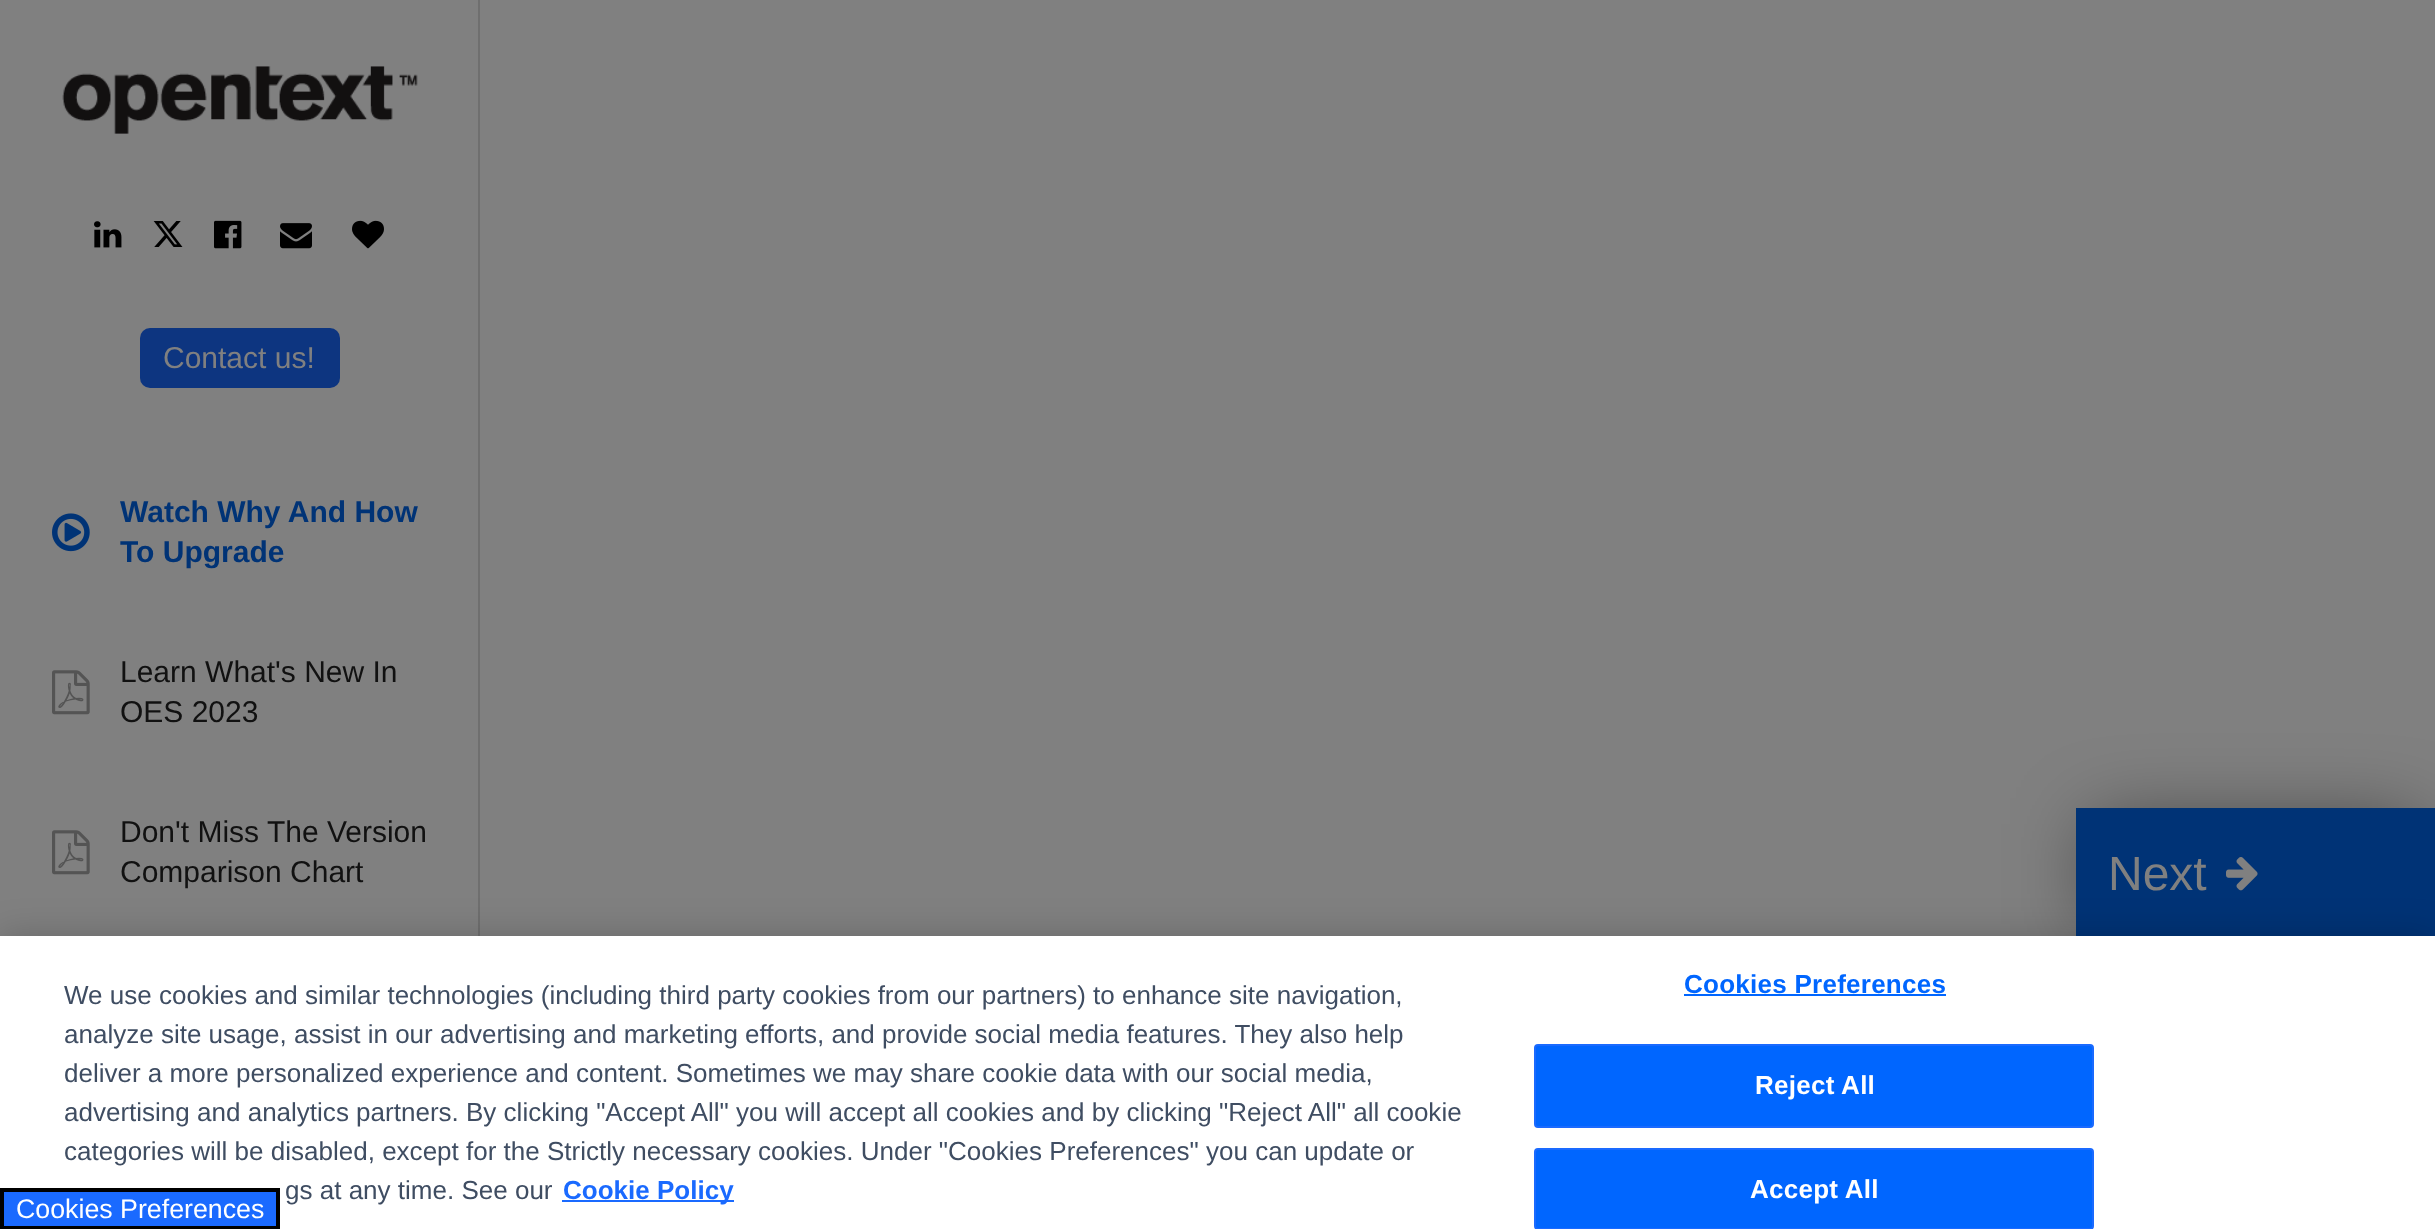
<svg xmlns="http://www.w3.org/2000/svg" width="2435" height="1229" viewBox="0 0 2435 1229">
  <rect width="100%" height="100%" fill="#808080"/>
  <path d="M478 0h2v936H478z" fill="#6f6f6f"/>
  <image x="62" y="66" width="356" height="68" href="img/1.png"/>
  <image x="94" y="221" width="28" height="27" href="img/2.png"/>
  <image x="153" y="221" width="30" height="26" href="img/3.png"/>
  <image x="214" y="220" width="28" height="29" href="img/4.png"/>
  <image x="280" y="223" width="32" height="26" href="img/5.png"/>
  <image x="352" y="220" width="32" height="29" href="img/6.png"/>
  <rect x="140" y="328" width="200" height="60" rx="10" fill="#0d3580"/>
  <image x="52" y="513" width="38" height="39" href="img/7.png"/>
  <image x="52" y="670" width="38" height="45" href="img/8.png"/>
  <image x="52" y="830" width="38" height="45" href="img/8.png"/>
  <path d="M2092 824h328v100H2092z" fill="#00000080" filter="blur(40px)"/>
  <path d="M2076 808h359v128H2076z" fill="#003376"/>
  <image x="2226" y="857" width="32" height="34" href="img/9.png"/>
  <path d="M0 936h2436v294H0z" fill="#00000033" filter="blur(18px)"/>
  <path d="M0 936h2435v293H0z" fill="#fff"/>
  <path d="M562 1200h172v2H562z" fill="#1a6aff"/>
  <path d="M1684 994h262v2H1684z" fill="#06f"/>
  <rect x="1535" y="1045" width="558" height="82" rx="3" fill="#06f" stroke="#1a6aff" stroke-width="2"/>
  <rect x="1535" y="1149" width="558" height="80" rx="3" fill="#06f" stroke="#1a6aff" stroke-width="2"/>
  <path d="M2 1190h276v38H2z" fill="#1a6aff" stroke="#000" stroke-width="4"/>
  <text x="163" y="368" font-family="Liberation Sans" font-size="30" fill="#808080">Contact us!</text>
  <g font-family="Liberation Sans" font-size="30" font-weight="bold" fill="#003376">
    <text x="120" y="522">Watch Why And How</text>
    <text x="120" y="562">To Upgrade</text>
  </g>
  <g font-family="Liberation Sans" font-size="30" fill="#111">
    <text x="120" y="682">Learn What's New In</text>
    <text x="120" y="722">OES 2023</text>
    <text x="120" y="842">Don't Miss The Version</text>
    <text x="120" y="882">Comparison Chart</text>
  </g>
  <text x="2108" y="890" font-family="Liberation Sans" font-size="48" fill="#808080">Next</text>
  <g font-family="Liberation Sans" font-size="26.02" fill="#3f4d62">
    <text x="64" y="1004">We use cookies and similar technologies (including third party cookies from our partners) to enhance site navigation,</text>
    <text x="64" y="1043">analyze site usage, assist in our advertising and marketing efforts, and provide social media features. They also help</text>
    <text x="64" y="1082">deliver a more personalized experience and content. Sometimes we may share cookie data with our social media,</text>
    <text x="64" y="1121">advertising and analytics partners. By clicking "Accept All" you will accept all cookies and by clicking "Reject All" all cookie</text>
    <text x="64" y="1160">categories will be disabled, except for the Strictly necessary cookies. Under "Cookies Preferences" you can update or</text>
    <text x="285" y="1199">gs at any time. See our</text>
  </g>
  <text x="563" y="1199" font-family="Liberation Sans" font-size="26.02" font-weight="bold" fill="#1a6aff">Cookie Policy</text>
  <text x="1684" y="993" font-family="Liberation Sans" font-size="26.02" font-weight="bold" letter-spacing="0.25" fill="#06f">Cookies Preferences</text>
  <g font-family="Liberation Sans" font-size="26.02" font-weight="bold" letter-spacing="0.25" fill="#fff">
    <text x="1755" y="1094">Reject All</text>
    <text x="1750" y="1198">Accept All</text>
  </g>
  <text x="16" y="1218" font-family="Liberation Sans" font-size="26.75" fill="#fff">Cookies Preferences</text>
</svg>
